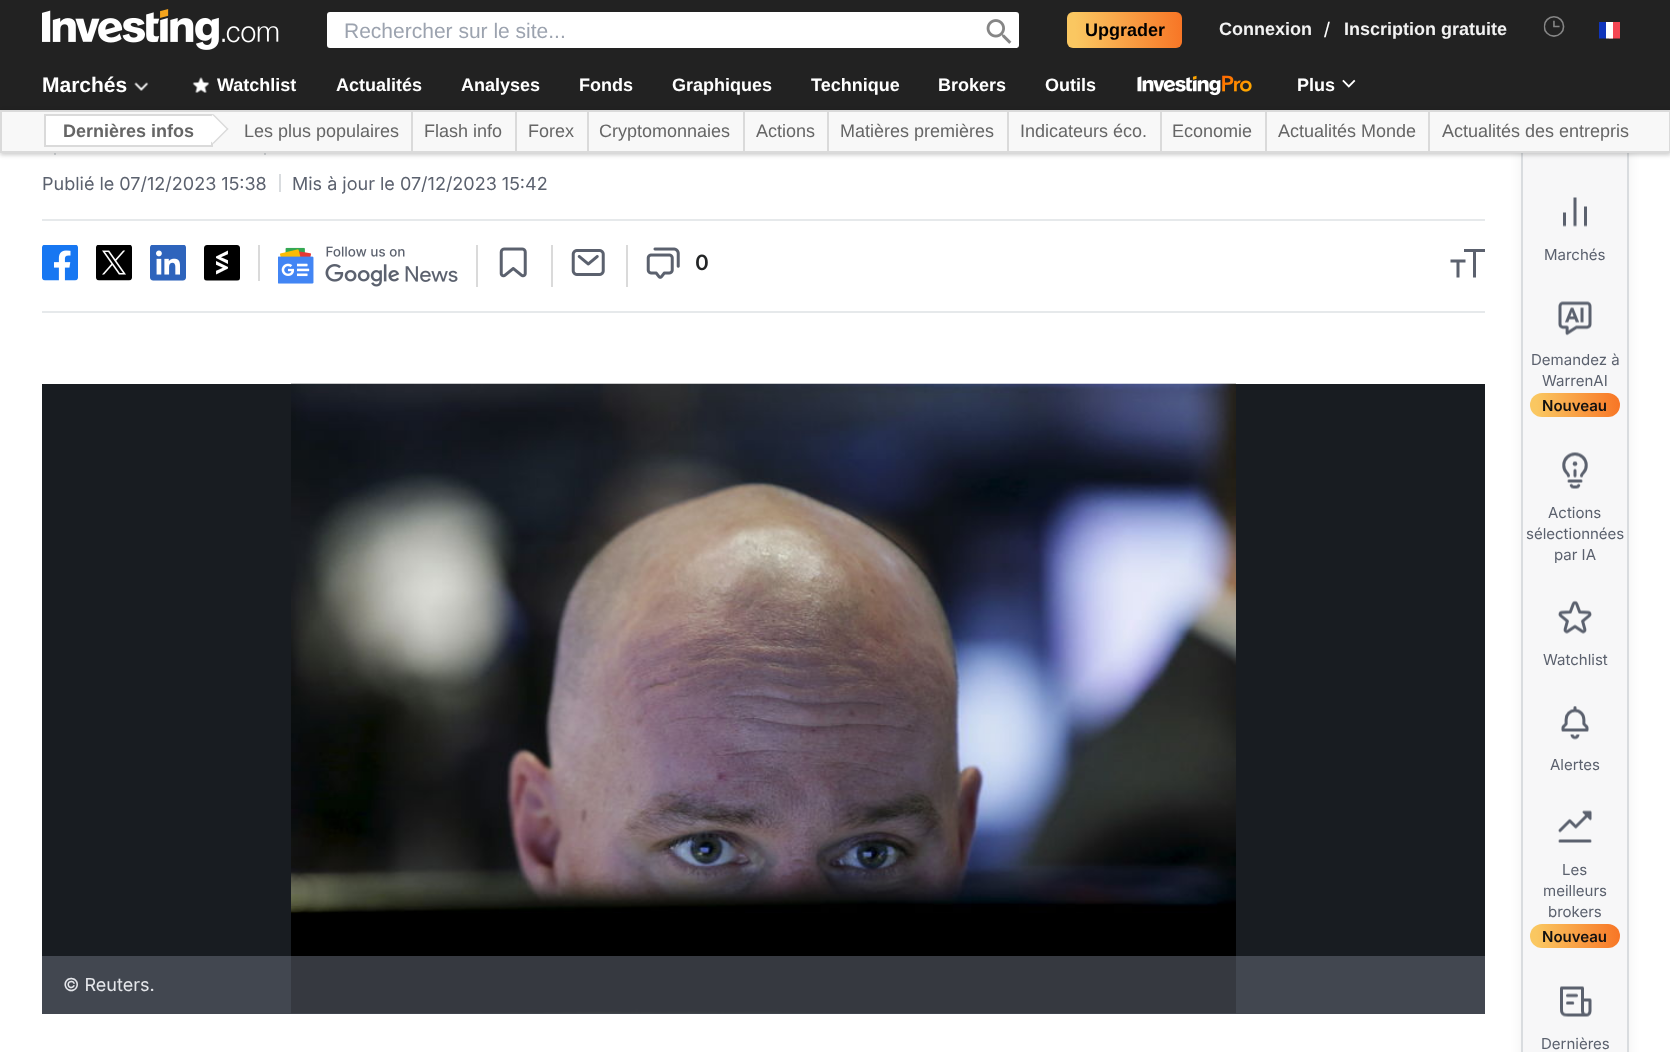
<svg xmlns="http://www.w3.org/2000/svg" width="1670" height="1052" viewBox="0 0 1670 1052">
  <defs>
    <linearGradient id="g1" gradientUnits="userSpaceOnUse" x1="1066" y1="34" x2="1200" y2="25"><stop offset="0.07" stop-color="#fac761"/><stop offset="1" stop-color="#f7681c"/></linearGradient>
    <linearGradient id="g2" gradientUnits="userSpaceOnUse" x1="1529" y1="408" x2="1634" y2="401"><stop offset="0.07" stop-color="#fac761"/><stop offset="1" stop-color="#f7681c"/></linearGradient>
    <linearGradient id="g3" gradientUnits="userSpaceOnUse" x1="1529" y1="939" x2="1634" y2="932"><stop offset="0.07" stop-color="#fac761"/><stop offset="1" stop-color="#f7681c"/></linearGradient>
  </defs>
  <rect width="100%" height="100%" fill="#fff"/>
  <rect x="1521" y="-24" width="108" height="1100" rx="6" fill="#23252612" filter="blur(6px)"/>
  <path d="M1523 153h104v899H1523z" fill="#f7f7f8"/>
  <path d="M1522 -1h106v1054H1522z" fill="none" stroke="#d9dcdf" stroke-width="2"/>
  <path d="M0 0h1670v110H0z" fill="#222"/>
  <image x="42" y="9" width="237" height="41" href="img/1.png"/>
  <rect x="327" y="12" width="692" height="36" rx="3" fill="#fff"/>
  <image x="986" y="19" width="26" height="25" href="img/2.png"/>
  <rect x="1067" y="12" width="115" height="36" rx="6" fill="url(#g1)"/>
  <image x="1543" y="16" width="22" height="21" href="img/3.png"/>
  <image x="1599" y="22" width="21" height="17" href="img/4.png"/>
  <image x="134" y="82" width="15" height="9" href="img/5.png"/>
  <image x="192" y="77" width="18" height="16" href="img/6.png"/>
  <image x="1137" y="75" width="115" height="21" href="img/7.png"/>
  <image x="1342" y="79" width="14" height="9" href="img/8.png"/>
  <path d="M54 153h2v2H54z" fill="#d9dcdf"/>
  <path d="M264 153h2v2H264z" fill="#d9dcdf"/>
  <path d="M0 111h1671v44H0z" fill="#00000033" filter="blur(2px)"/>
  <path d="M1 111h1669v41H1z" fill="#f8f8f8" stroke="#dadada" stroke-width="2"/>
  <path d="M45 115h167v31H45z" fill="#fff" stroke="#dadada" stroke-width="2"/>
  <path d="M213.5 114L228.5 129L213.5 144L198.5 129Z" fill="#fff"/>
  <path d="M213.5 114L228.5 129L227.5 130L212.5 115Z" fill="#dadada"/>
  <path d="M227.5 128L228.5 129L213.5 144L212.5 143Z" fill="#dadada"/>
  <path d="M411 111h2v41H411z" fill="#dadada"/>
  <path d="M515 111h2v41H515z" fill="#dadada"/>
  <path d="M587 111h2v41H587z" fill="#dadada"/>
  <path d="M743 111h2v41H743z" fill="#dadada"/>
  <path d="M827 111h2v41H827z" fill="#dadada"/>
  <path d="M1007 111h2v41H1007z" fill="#dadada"/>
  <path d="M1160 111h2v41H1160z" fill="#dadada"/>
  <path d="M1265 111h2v41H1265z" fill="#dadada"/>
  <path d="M1428 111h2v41H1428z" fill="#dadada"/>
  <path d="M279 174h2v18H279z" fill="#d9dcdf"/>
  <path d="M42 219h1443v2H42z" fill="#e6e9eb"/>
  <path d="M258 245h2v36H258z" fill="#dadada"/>
  <image x="42" y="245" width="36" height="36" href="img/9.png"/>
  <image x="96" y="245" width="36" height="36" href="img/10.png"/>
  <image x="150" y="245" width="36" height="36" href="img/11.png"/>
  <image x="204" y="245" width="36" height="36" href="img/12.png"/>
  <path d="M476 245h2v42H476z" fill="#dadada"/>
  <image x="278" y="246" width="180" height="41" href="img/13.png"/>
  <path d="M551 245h2v42H551z" fill="#dadada"/>
  <image x="499" y="247" width="28" height="31" href="img/14.png"/>
  <path d="M626 245h2v42H626z" fill="#dadada"/>
  <image x="571" y="249" width="34" height="27" href="img/15.png"/>
  <image x="646" y="247" width="34" height="32" href="img/16.png"/>
  <path d="M1465.5 250.5H1474.5M1474.5 250.5H1483.5M1474.5 250.5V276M1452 261H1458M1458 261H1464M1458 261V276" fill="none" stroke="#5b616e" stroke-width="3" stroke-linecap="square" stroke-linejoin="round"/>
  <path d="M42 311h1443v2H42z" fill="#e6e9eb"/>
  <path d="M42 384h1443v630H42z" fill="#181c21"/>
  <image x="291" y="383" width="945" height="631" href="img/17.png"/>
  <path d="M42 956h1443v58H42z" fill="#6b728080"/>
  <image x="1563" y="197" width="24" height="30" href="img/18.png"/>
  <image x="1558" y="301" width="34" height="35" href="img/19.png"/>
  <rect x="1530" y="393" width="90" height="24" rx="12" fill="url(#g2)"/>
  <image x="1562" y="452" width="26" height="37" href="img/20.png"/>
  <image x="1558" y="600" width="34" height="34" href="img/21.png"/>
  <image x="1561" y="706" width="28" height="34" href="img/22.png"/>
  <image x="1558" y="810" width="34" height="33" href="img/23.png"/>
  <rect x="1530" y="924" width="90" height="24" rx="12" fill="url(#g3)"/>
  <image x="1560" y="986" width="32" height="31" href="img/24.png"/>
  <text x="344" y="38" font-family="Liberation Sans" font-size="21" fill="#9ca3af">Rechercher sur le site...</text>
  <text x="1085" y="36" font-family="Liberation Sans" font-size="18" font-weight="bold" fill="#000">Upgrader</text>
  <text x="1219" y="35" font-family="Liberation Sans" font-size="18" font-weight="bold" fill="#f2f2f2">Connexion</text>
  <text x="1324" y="37" font-family="Liberation Sans" font-size="21" fill="#fff">/</text>
  <text x="1344" y="35" font-family="Liberation Sans" font-size="18" font-weight="bold" fill="#f2f2f2">Inscription gratuite</text>
  <text x="42" y="92" font-family="Liberation Sans" font-size="21" font-weight="bold" fill="#fff">Marchés</text>
  <g font-family="Liberation Sans" font-size="18" font-weight="bold" fill="#fff">
    <text x="217" y="91">Watchlist</text>
    <text x="336" y="91">Actualités</text>
    <text x="461" y="91">Analyses</text>
    <text x="579" y="91">Fonds</text>
    <text x="672" y="91">Graphiques</text>
    <text x="811" y="91">Technique</text>
    <text x="938" y="91">Brokers</text>
    <text x="1045" y="91">Outils</text>
    <text x="1297" y="91">Plus</text>
  </g>
  <text x="63" y="137" font-family="Liberation Sans" font-size="18" font-weight="bold" fill="#666">Dernières infos</text>
  <g font-family="Liberation Sans" font-size="18" fill="#666">
    <text x="244" y="137">Les plus populaires</text>
    <text x="424" y="137">Flash info</text>
    <text x="528" y="137">Forex</text>
    <text x="599" y="137">Cryptomonnaies</text>
    <text x="756" y="137">Actions</text>
    <text x="840" y="137">Matières premières</text>
    <text x="1020" y="137">Indicateurs éco.</text>
    <text x="1172" y="137">Economie</text>
    <text x="1278" y="137">Actualités Monde</text>
    <text x="1442" y="137">Actualités des entrepris</text>
  </g>
  <g font-family="Inter" font-size="18" fill="#5b616e">
    <text x="42" y="190">Publié le 07/12/2023 15:38</text>
    <text x="292" y="190">Mis à jour le 07/12/2023 15:42</text>
  </g>
  <text x="695" y="270" font-family="Inter" font-size="21" font-weight="600" fill="#232526">0</text>
  <text x="63" y="991" font-family="Inter" font-size="18" fill="#e5e7eb">© Reuters.</text>
  <g font-family="Inter" font-size="15" fill="#5b616e">
    <text x="1544" y="260">Marchés</text>
    <text x="1531" y="365">Demandez à</text>
    <text x="1542" y="386">WarrenAI</text>
  </g>
  <text x="1542" y="411" font-family="Inter" font-size="15" font-weight="600" fill="#111">Nouveau</text>
  <g font-family="Inter" font-size="15" fill="#5b616e">
    <text x="1548" y="518">Actions</text>
    <text x="1526" y="539">sélectionnées</text>
    <text x="1554" y="560">par IA</text>
    <text x="1543" y="665">Watchlist</text>
    <text x="1550" y="770">Alertes</text>
    <text x="1562" y="875">Les</text>
    <text x="1543" y="896">meilleurs</text>
    <text x="1548" y="917">brokers</text>
  </g>
  <text x="1542" y="942" font-family="Inter" font-size="15" font-weight="600" fill="#111">Nouveau</text>
  <text x="1541" y="1049" font-family="Inter" font-size="15" fill="#5b616e">Dernières</text>
</svg>
